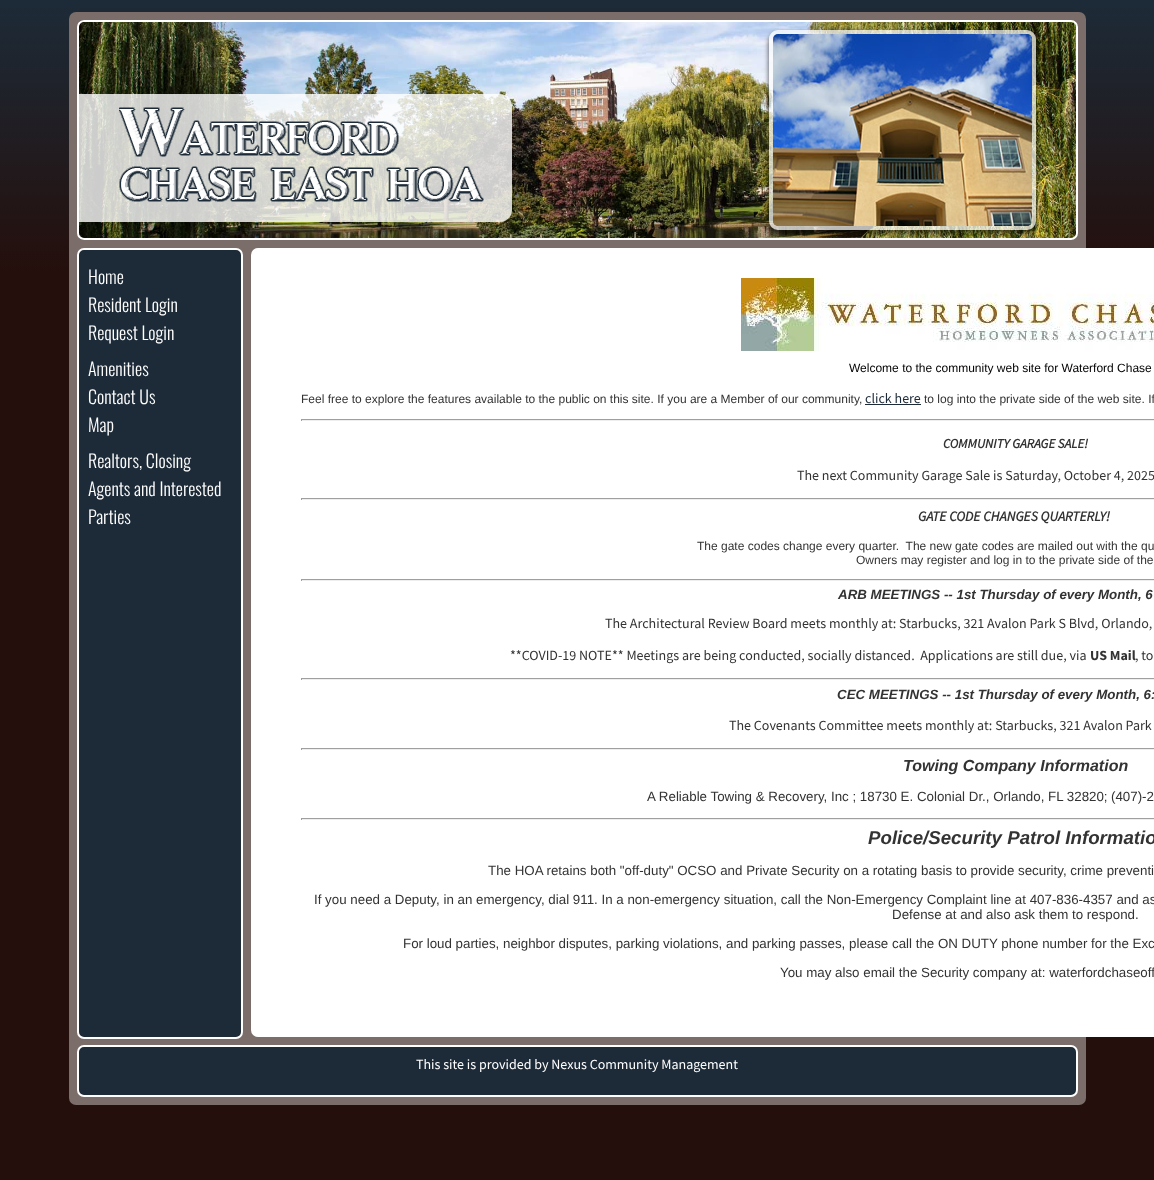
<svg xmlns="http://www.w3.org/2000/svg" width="1154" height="1180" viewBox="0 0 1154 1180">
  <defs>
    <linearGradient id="g1" gradientUnits="userSpaceOnUse" x1="577" y1="0" x2="577" y2="1180"><stop offset="0" stop-color="#1d2b38"/><stop offset="0.23" stop-color="#240f0c"/><stop offset="1" stop-color="#240f0c"/></linearGradient>
    <clipPath id="clip1"><path d="M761 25H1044V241H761ZM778 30H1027C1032 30 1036 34 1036 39V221C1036 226 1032 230 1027 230H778C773 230 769 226 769 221V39C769 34 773 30 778 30Z" clip-rule="evenodd"/></clipPath>
  </defs>
  <rect width="100%" height="100%" fill="#fff"/>
  <path d="M0 0h1154v1180H0z" fill="url(#g1)"/>
  <rect x="69" y="12" width="1017" height="1093" rx="7" fill="#7a6d6a"/>
  <image x="79" y="20" width="997" height="220" href="img/1.png"/>
  <rect x="78" y="21" width="999" height="218" rx="6" fill="none" stroke="#fff" stroke-width="2"/>
  <path d="M79 94H500C506.5 94 512 99.5 512 106V210C512 216.5 506.5 222 500 222H79Z" fill="#ffffffcc"/>
  <image x="119" y="107" width="365" height="95" href="img/2.png"/>
  <g clip-path="url(#clip1)">
    <rect x="768" y="32" width="269" height="202" rx="10" fill="#00000080" filter="blur(2px)"/>
  </g>
  <rect x="771" y="32" width="263" height="196" rx="7" fill="none" stroke="#ffffffb3" stroke-width="4"/>
  <image x="773" y="34" width="259" height="192" href="img/3.png"/>
  <rect x="78" y="249" width="164" height="789" rx="6" fill="#1d2b38" stroke="#fff" stroke-width="2"/>
  <rect x="251" y="248" width="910" height="789" rx="7" fill="#fff"/>
  <image x="741" y="278" width="413" height="73" href="img/4.png"/>
  <path d="M865 404h56v1H865z" fill="#1d2b38"/>
  <path d="M301 419h853v1H301z" fill="#9f9f9f"/>
  <path d="M301 420h853v1H301z" fill="#eee"/>
  <path d="M301 419h1v2H301z" fill="#9f9f9f"/>
  <path d="M301 498h853v1H301z" fill="#9f9f9f"/>
  <path d="M301 499h853v1H301z" fill="#eee"/>
  <path d="M301 498h1v2H301z" fill="#9f9f9f"/>
  <path d="M301 579h853v1H301z" fill="#9f9f9f"/>
  <path d="M301 580h853v1H301z" fill="#eee"/>
  <path d="M301 579h1v2H301z" fill="#9f9f9f"/>
  <path d="M301 678h853v1H301z" fill="#9f9f9f"/>
  <path d="M301 679h853v1H301z" fill="#eee"/>
  <path d="M301 678h1v2H301z" fill="#9f9f9f"/>
  <path d="M301 748h853v1H301z" fill="#9f9f9f"/>
  <path d="M301 749h853v1H301z" fill="#eee"/>
  <path d="M301 748h1v2H301z" fill="#9f9f9f"/>
  <path d="M301 818h853v1H301z" fill="#9f9f9f"/>
  <path d="M301 819h853v1H301z" fill="#eee"/>
  <path d="M301 818h1v2H301z" fill="#9f9f9f"/>
  <rect x="78" y="1046" width="999" height="50" rx="6" fill="#1d2b38" stroke="#fff" stroke-width="2"/>
  <g font-family="Oswald" font-size="18" font-weight="300" fill="#fff">
    <text x="88" y="284">Home</text>
    <text x="88" y="312">Resident Login</text>
    <text x="88" y="340">Request Login</text>
    <text x="88" y="376">Amenities</text>
    <text x="88" y="404">Contact Us</text>
    <text x="88" y="432">Map</text>
    <text x="88" y="468">Realtors, Closing</text>
    <text x="88" y="496">Agents and Interested</text>
    <text x="88" y="524">Parties</text>
  </g>
  <text x="849" y="372" font-family="Liberation Sans" font-size="12" fill="#030001">Welcome to the community web site for Waterford Chase</text>
  <text x="301" y="403" font-family="Liberation Sans" font-size="12" fill="#333">Feel free to explore the features available to the public on this site. If you are a Member of our community,</text>
  <text x="865" y="403" font-family="Source Sans Pro" font-size="14" fill="#1d2b38">click here</text>
  <text x="924" y="403" font-family="Liberation Sans" font-size="12" fill="#333">to log into the private side of the web site. If</text>
  <text x="943" y="448" font-family="Source Sans Pro" font-size="13.33" font-weight="bold" font-style="italic" fill="#333">COMMUNITY GARAGE SALE!</text>
  <text x="797" y="480" font-family="Source Sans Pro" font-size="14" fill="#333">The next Community Garage Sale is Saturday, October 4, 2025</text>
  <text x="918" y="521" font-family="Source Sans Pro" font-size="14" font-weight="bold" font-style="italic" fill="#333">GATE CODE CHANGES QUARTERLY!</text>
  <g font-family="Liberation Sans" font-size="12" fill="#333">
    <text x="697" y="550" xml:space="preserve">The gate codes change every quarter.  The new gate codes are mailed out with the qu</text>
    <text x="856" y="564">Owners may register and log in to the private side of the</text>
  </g>
  <text x="838" y="599" font-family="Liberation Sans" font-size="13.33" font-weight="bold" font-style="italic" fill="#333">ARB MEETINGS -- 1st Thursday of every Month, 6</text>
  <g font-family="Source Sans Pro" font-size="14" fill="#333">
    <text x="605" y="628">The Architectural Review Board meets monthly at: Starbucks, 321 Avalon Park S Blvd, Orlando,</text>
    <text x="510" y="660" xml:space="preserve">**COVID-19 NOTE** Meetings are being conducted, socially distanced.  Applications are still due, via</text>
  </g>
  <text x="1090" y="660" font-family="Source Sans Pro" font-size="14" font-weight="bold" fill="#333">US Mail</text>
  <text x="1135" y="660" font-family="Source Sans Pro" font-size="14" fill="#333">, to</text>
  <text x="837" y="699" font-family="Liberation Sans" font-size="13.33" font-weight="bold" font-style="italic" fill="#333">CEC MEETINGS -- 1st Thursday of every Month, 6:</text>
  <text x="729" y="730" font-family="Source Sans Pro" font-size="14" fill="#333">The Covenants Committee meets monthly at: Starbucks, 321 Avalon Park</text>
  <text x="903" y="771" font-family="Liberation Sans" font-size="16" font-weight="bold" font-style="italic" fill="#333">Towing Company Information</text>
  <g font-family="Liberation Sans" font-size="13.33" fill="#333">
    <text x="647" y="801">A Reliable Towing &amp; Recovery, Inc ; 18730 E. Colonial Dr., Orlando, FL 32820;</text>
    <text x="1111" y="801">(407)-2</text>
  </g>
  <text x="868" y="844" font-family="Liberation Sans" font-size="18.7" font-weight="bold" font-style="italic" fill="#333">Police/Security Patrol Informatio</text>
  <g font-family="Liberation Sans" font-size="13.33" fill="#333">
    <text x="488" y="875">The HOA retains both "off-duty" OCSO and Private Security on a rotating basis to provide security, crime preventi</text>
    <text x="314" y="904">If you need a Deputy, in an emergency, dial 911. In a non-emergency situation, call the Non-Emergency Complaint line at 407-836-4357 and as</text>
    <text x="892" y="919">Defense at and also ask them to respond.</text>
    <text x="403" y="948">For loud parties, neighbor disputes, parking violations, and parking passes, please call the ON DUTY phone number for the Exc</text>
    <text x="780" y="977">You may also email the Security company at: waterfordchaseoff</text>
  </g>
  <text x="416" y="1069" font-family="Source Sans Pro" font-size="14" fill="#fff">This site is provided by Nexus Community Management</text>
</svg>
